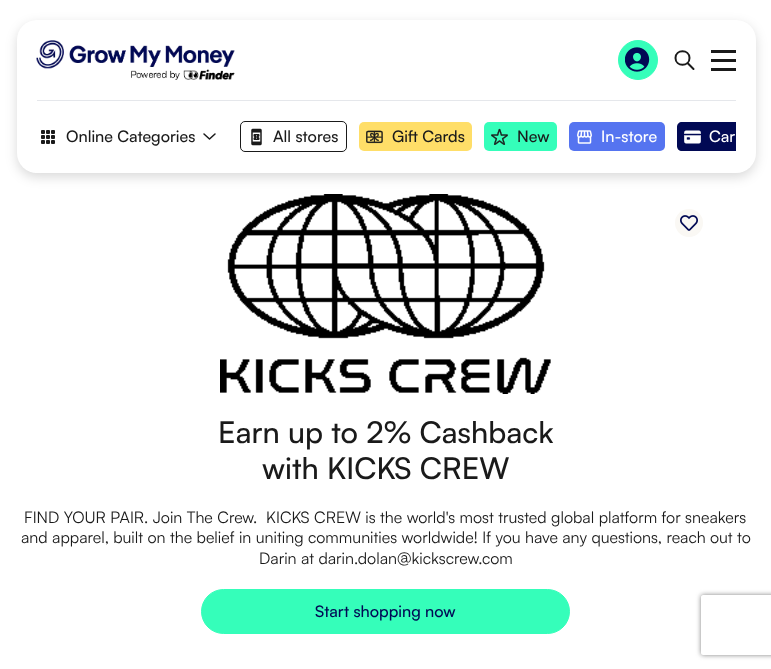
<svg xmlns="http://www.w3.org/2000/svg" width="771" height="669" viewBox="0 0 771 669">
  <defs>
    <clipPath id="clip1"><path d="M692 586H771V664H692ZM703 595H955C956 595 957 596 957 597V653C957 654 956 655 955 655H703C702 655 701 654 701 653V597C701 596 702 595 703 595Z" clip-rule="evenodd"/></clipPath>
  </defs>
  <rect width="100%" height="100%" fill="#fff"/>
  <image x="220" y="194" width="331" height="200" href="img/9.png"/>
  <rect x="17" y="24" width="739" height="153" rx="20" fill="#00000026" filter="blur(6px)"/>
  <rect x="17" y="20" width="739" height="153" rx="20" fill="#fff"/>
  <image x="36" y="40" width="199" height="40" href="img/1.png"/>
  <circle cx="638" cy="60" r="19.5" fill="#35feba" stroke="#35feba"/>
  <image x="625" y="47" width="25" height="25" href="img/2.png"/>
  <path d="M693.5 69L687.5 63M689.5 58C689.5 67 675.5 67 675.5 58C675.5 49 689.5 49 689.5 58Z" fill="none" stroke="#1a1a1a" stroke-width="2" stroke-linecap="round" stroke-linejoin="round"/>
  <path d="M711 50h25v3H711z" fill="#1a1a1a"/>
  <path d="M711 59h25v3H711z" fill="#1a1a1a"/>
  <path d="M711 68h25v3H711z" fill="#1a1a1a"/>
  <path d="M37 100h699v1H37z" fill="#e5e7eb"/>
  <image x="41" y="130" width="14" height="14" href="img/3.png"/>
  <path d="M215 134L209.5 139L204 134" fill="none" stroke="#1a1a1a" stroke-width="1.5" stroke-linecap="round" stroke-linejoin="round"/>
  <rect x="240.5" y="121.5" width="106" height="30" rx="4.5" fill="none" stroke="#1a1a1a"/>
  <image x="251" y="128" width="11" height="18" href="img/4.png"/>
  <rect x="359" y="122" width="113" height="29" rx="5" fill="#ffde68"/>
  <image x="366" y="130" width="17" height="14" href="img/5.png"/>
  <rect x="484" y="122" width="73" height="29" rx="5" fill="#35feba"/>
  <image x="491" y="128" width="17" height="17" href="img/6.png"/>
  <rect x="569" y="122" width="96" height="29" rx="5" fill="#5574f0"/>
  <image x="577" y="130" width="15" height="14" href="img/7.png"/>
  <path d="M682 122H736V151H682C679 151 677 149 677 146V127C677 124 679 122 682 122Z" fill="#010954"/>
  <image x="684" y="130" width="17" height="14" href="img/8.png"/>
  <circle cx="689" cy="223" r="14" fill="#faf8f4"/>
  <image x="680" y="215" width="18" height="16" href="img/10.png"/>
  <rect x="201.5" y="589.5" width="368" height="44" rx="22" fill="#35feba" stroke="#35feba"/>
  <g clip-path="url(#clip1)">
    <rect x="701" y="595" width="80" height="60" rx="2" fill="#808080" filter="blur(2.5px)"/>
  </g>
  <g font-family="Satoshi" font-size="16" font-weight="500" fill="#1a1a1a">
    <text x="66" y="142">Online Categories</text>
    <text x="273" y="142">All stores</text>
    <text x="392" y="142">Gift Cards</text>
    <text x="517" y="142">New</text>
  </g>
  <g font-family="Satoshi" font-size="16" font-weight="500" fill="#fff">
    <text x="601" y="142">In-store</text>
    <text x="709" y="142">Car</text>
  </g>
  <g font-family="Satoshi" font-size="30" font-weight="500" fill="#1a1a1a">
    <text x="218" y="443">Earn up to 2% Cashback</text>
    <text x="262" y="479">with KICKS CREW</text>
  </g>
  <g font-family="Satoshi" font-size="16" fill="#1a1a1a">
    <text x="24" y="523" xml:space="preserve">FIND YOUR PAIR. Join The Crew.  KICKS CREW is the world's most trusted global platform for sneakers</text>
    <text x="21" y="543">and apparel, built on the belief in uniting communities worldwide! If you have any questions, reach out to</text>
    <text x="259" y="564">Darin at darin.dolan@kickscrew.com</text>
  </g>
  <text x="315" y="617" font-family="Satoshi" font-size="16" font-weight="500" fill="#010954">Start shopping now</text>
</svg>
